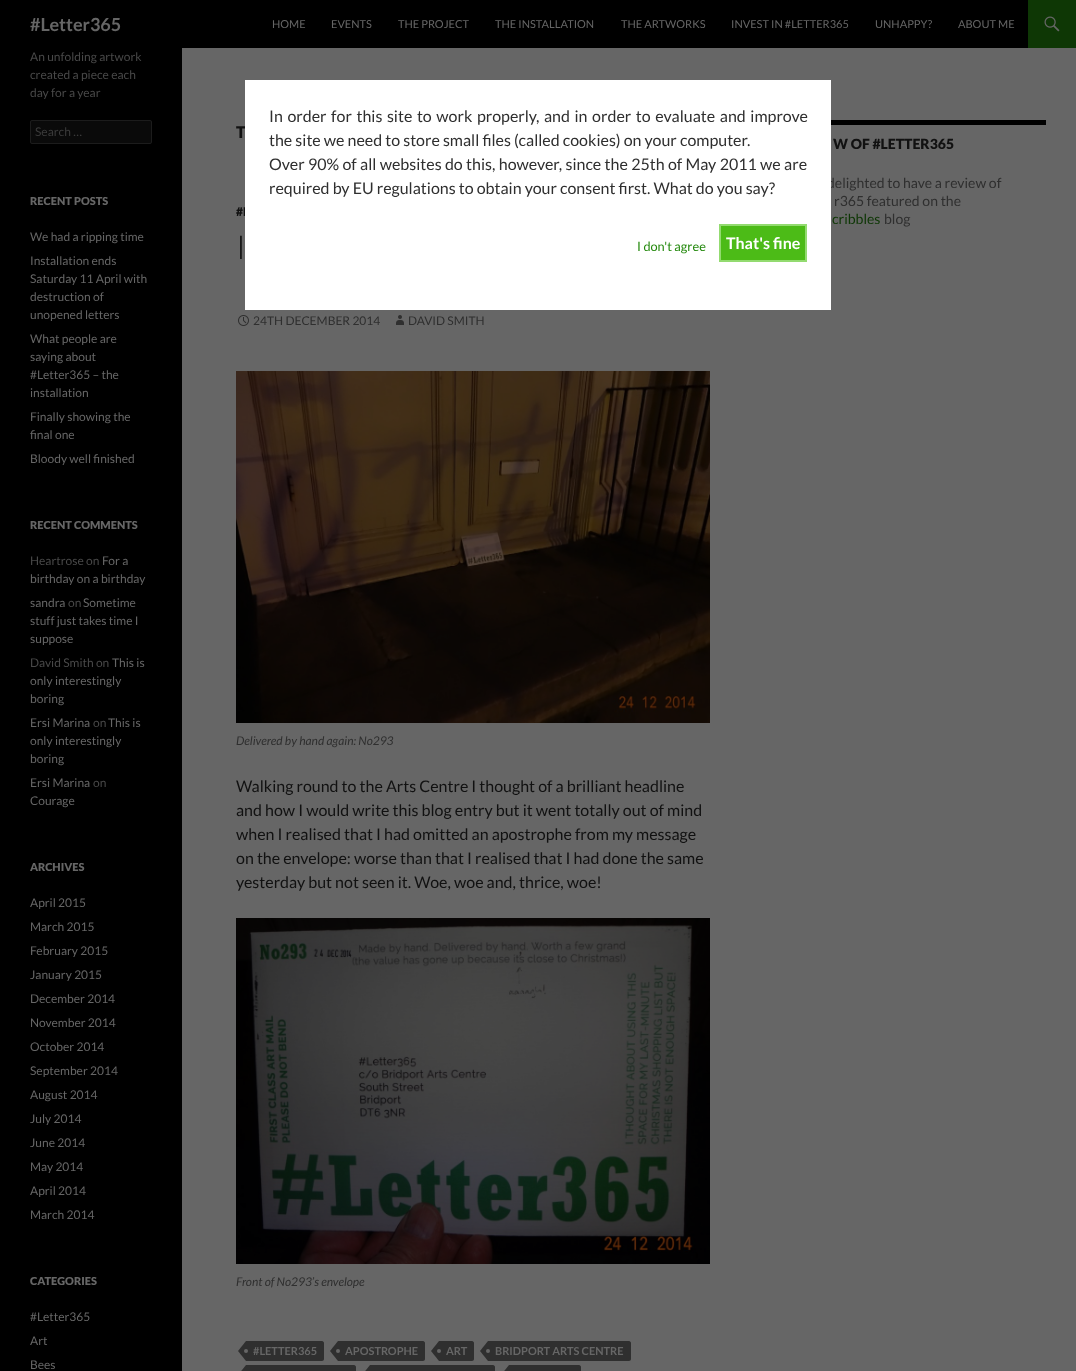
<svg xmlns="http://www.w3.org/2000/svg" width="1076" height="1371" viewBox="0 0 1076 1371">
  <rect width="100%" height="100%" fill="#666"/>
  <path d="M0 0h1028v48H0z" fill="#000"/>
  <path d="M1028 0h48v48H1028z" fill="#0e3705"/>
  <image x="1044" y="16" width="16" height="16" href="img/1.png"/>
  <path d="M0 48h182v1323H0z" fill="#000"/>
  <rect x="30" y="120" width="122" height="24" rx="2" fill="#0a0a0a"/>
  <rect x="30.5" y="120.5" width="121" height="23" rx="1.5" fill="none" stroke="#66666633"/>
  <image x="238" y="315" width="11" height="11" href="img/2.png"/>
  <image x="396" y="315" width="8" height="10" href="img/3.png"/>
  <image x="236" y="371" width="474" height="352" href="img/4.png"/>
  <image x="236" y="918" width="474" height="346" href="img/5.png"/>
  <path d="M246 1341H322C323 1341 324 1342 324 1343V1359C324 1360 323 1361 322 1361H246Z" fill="#2f2f2f"/>
  <path d="M246 1341V1361L238 1351Z" fill="#2f2f2f"/>
  <circle cx="246" cy="1351" r="2" fill="#666"/>
  <path d="M338 1341H423C424 1341 425 1342 425 1343V1359C425 1360 424 1361 423 1361H338Z" fill="#2f2f2f"/>
  <path d="M338 1341V1361L330 1351Z" fill="#2f2f2f"/>
  <circle cx="338" cy="1351" r="2" fill="#666"/>
  <path d="M439 1341H472C473 1341 474 1342 474 1343V1359C474 1360 473 1361 472 1361H439Z" fill="#2f2f2f"/>
  <path d="M439 1341V1361L431 1351Z" fill="#2f2f2f"/>
  <circle cx="439" cy="1351" r="2" fill="#666"/>
  <path d="M488 1341H629C630 1341 631 1342 631 1343V1359C631 1360 630 1361 629 1361H488Z" fill="#2f2f2f"/>
  <path d="M488 1341V1361L480 1351Z" fill="#2f2f2f"/>
  <circle cx="488" cy="1351" r="2" fill="#666"/>
  <path d="M246 1365H354C355 1365 356 1366 356 1367V1371C356 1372 355 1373 354 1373H246Z" fill="#2f2f2f"/>
  <path d="M246 1365V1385L238 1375Z" fill="#2f2f2f"/>
  <path d="M370 1365H493C494 1365 495 1366 495 1367V1371C495 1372 494 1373 493 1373H370Z" fill="#2f2f2f"/>
  <path d="M370 1365V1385L362 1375Z" fill="#2f2f2f"/>
  <path d="M509 1365H579C580 1365 581 1366 581 1367V1371C581 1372 580 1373 579 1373H509Z" fill="#2f2f2f"/>
  <path d="M509 1365V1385L501 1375Z" fill="#2f2f2f"/>
  <path d="M831 120h215v5H831z" fill="#000"/>
  <text x="30" y="31" font-family="Lato" font-size="18" font-weight="bold" fill="#666">#Letter365</text>
  <g font-family="Lato" font-size="11" fill="#666">
    <text x="272" y="28">HOME</text>
    <text x="331" y="28">EVENTS</text>
    <text x="398" y="28">THE PROJECT</text>
    <text x="495" y="28">THE INSTALLATION</text>
    <text x="621" y="28">THE ARTWORKS</text>
    <text x="731" y="28">INVEST IN #LETTER365</text>
    <text x="875" y="28">UNHAPPY?</text>
    <text x="958" y="28">ABOUT ME</text>
  </g>
  <g font-family="Lato" font-size="12" fill="#484848">
    <text x="30" y="61">An unfolding artwork</text>
    <text x="30" y="79">created a piece each</text>
    <text x="30" y="97">day for a year</text>
  </g>
  <text x="35" y="136" font-family="Lato" font-size="12" fill="#3b3b3b">Search …</text>
  <text x="30" y="205" font-family="Lato" font-size="11" font-weight="900" fill="#666">RECENT POSTS</text>
  <g font-family="Lato" font-size="12" fill="#666">
    <text x="30" y="241">We had a ripping time</text>
    <text x="30" y="265">Installation ends</text>
    <text x="30" y="283">Saturday 11 April with</text>
    <text x="30" y="301">destruction of</text>
    <text x="30" y="319">unopened letters</text>
    <text x="30" y="343">What people are</text>
    <text x="30" y="361">saying about</text>
    <text x="30" y="379">#Letter365 – the</text>
    <text x="30" y="397">installation</text>
    <text x="30" y="421">Finally showing the</text>
    <text x="30" y="439">final one</text>
    <text x="30" y="463">Bloody well finished</text>
  </g>
  <text x="30" y="529" font-family="Lato" font-size="11" font-weight="900" fill="#666">RECENT COMMENTS</text>
  <text x="30" y="565" font-family="Lato" font-size="12" fill="#484848">Heartrose on</text>
  <g font-family="Lato" font-size="12" fill="#666">
    <text x="102" y="565">For a</text>
    <text x="30" y="583">birthday on a birthday</text>
    <text x="30" y="607">sandra</text>
  </g>
  <text x="68" y="607" font-family="Lato" font-size="12" fill="#484848">on</text>
  <g font-family="Lato" font-size="12" fill="#666">
    <text x="83" y="607">Sometime</text>
    <text x="30" y="625">stuff just takes time I</text>
    <text x="30" y="643">suppose</text>
  </g>
  <text x="30" y="667" font-family="Lato" font-size="12" fill="#484848">David Smith on</text>
  <g font-family="Lato" font-size="12" fill="#666">
    <text x="112" y="667">This is</text>
    <text x="30" y="685">only interestingly</text>
    <text x="30" y="703">boring</text>
    <text x="30" y="727">Ersi Marina</text>
  </g>
  <text x="93" y="727" font-family="Lato" font-size="12" fill="#484848">on</text>
  <g font-family="Lato" font-size="12" fill="#666">
    <text x="108" y="727">This is</text>
    <text x="30" y="745">only interestingly</text>
    <text x="30" y="763">boring</text>
    <text x="30" y="787">Ersi Marina</text>
  </g>
  <text x="93" y="787" font-family="Lato" font-size="12" fill="#484848">on</text>
  <text x="30" y="805" font-family="Lato" font-size="12" fill="#666">Courage</text>
  <text x="30" y="871" font-family="Lato" font-size="11" font-weight="900" fill="#666">ARCHIVES</text>
  <g font-family="Lato" font-size="12" fill="#666">
    <text x="30" y="907">April 2015</text>
    <text x="30" y="931">March 2015</text>
    <text x="30" y="955">February 2015</text>
    <text x="30" y="979">January 2015</text>
    <text x="30" y="1003">December 2014</text>
    <text x="30" y="1027">November 2014</text>
    <text x="30" y="1051">October 2014</text>
    <text x="30" y="1075">September 2014</text>
    <text x="30" y="1099">August 2014</text>
    <text x="30" y="1123">July 2014</text>
    <text x="30" y="1147">June 2014</text>
    <text x="30" y="1171">May 2014</text>
    <text x="30" y="1195">April 2014</text>
    <text x="30" y="1219">March 2014</text>
  </g>
  <text x="30" y="1285" font-family="Lato" font-size="11" font-weight="900" fill="#666">CATEGORIES</text>
  <g font-family="Lato" font-size="12" fill="#666">
    <text x="30" y="1321">#Letter365</text>
    <text x="30" y="1345">Art</text>
    <text x="30" y="1369">Bees</text>
  </g>
  <text x="236" y="138" font-family="Lato" font-size="16" font-weight="900" fill="#111">T</text>
  <text x="236" y="216" font-family="Lato" font-size="12" font-weight="900" fill="#111">#L</text>
  <text x="236" y="259" font-family="Lato" font-size="33" font-weight="300" fill="#111">I</text>
  <g font-family="Lato" font-size="12" fill="#2f2f2f">
    <text x="253" y="325">24TH DECEMBER 2014</text>
    <text x="408" y="325">DAVID SMITH</text>
  </g>
  <text x="236" y="745" font-family="Lato" font-size="12" font-style="italic" fill="#2f2f2f">Delivered by hand again: No293</text>
  <g font-family="Lato" font-size="16" fill="#111">
    <text x="236" y="792">Walking round to the Arts Centre I thought of a brilliant headline</text>
    <text x="236" y="816">and how I would write this blog entry but it went totally out of mind</text>
    <text x="236" y="840">when I realised that I had omitted an apostrophe from my message</text>
    <text x="236" y="864">on the envelope: worse than that I realised that I had done the same</text>
    <text x="236" y="888">yesterday but not seen it. Woe, woe and, thrice, woe!</text>
  </g>
  <text x="236" y="1286" font-family="Lato" font-size="12" font-style="italic" fill="#2f2f2f">Front of No293’s envelope</text>
  <g font-family="Lato" font-size="11" font-weight="bold" fill="#666">
    <text x="253" y="1355">#LETTER365</text>
    <text x="345" y="1355">APOSTROPHE</text>
    <text x="446" y="1355">ART</text>
    <text x="495" y="1355">BRIDPORT ARTS CENTRE</text>
  </g>
  <text x="833" y="149" font-family="Lato" font-size="14" font-weight="900" fill="#111">W OF #LETTER365</text>
  <g font-family="Lato" font-size="14" fill="#2f2f2f">
    <text x="827" y="188">delighted to have a review of</text>
    <text x="834" y="206">r365 featured on the</text>
  </g>
  <text x="832" y="224" font-family="Lato" font-size="14" fill="#0e3705">cribbles</text>
  <text x="884" y="224" font-family="Lato" font-size="14" fill="#2f2f2f">blog</text>
  <path d="M245 80h586v230H245z" fill="#fff"/>
  <g font-family="Lato" font-size="16" fill="#2f2f2f">
    <text x="269" y="122" word-spacing="1.5">In order for this site to work properly, and in order to evaluate and improve</text>
    <text x="269" y="146">the site we need to store small files (called cookies) on your computer.</text>
    <text x="269" y="170" word-spacing="0.25">Over 90% of all websites do this, however, since the 25th of May 2011 we are</text>
    <text x="269" y="194">required by EU regulations to obtain your consent first. What do you say?</text>
  </g>
  <text x="637" y="251" font-family="Lato" font-size="12.75" fill="#24890d">I don't agree</text>
  <path d="M720 225h86v36H720z" fill="#4cbb17" stroke="#93db70" stroke-width="2"/>
  <text x="726" y="249" font-family="Lato" font-size="16" font-weight="bold" fill="#fff">That's fine</text>
</svg>
